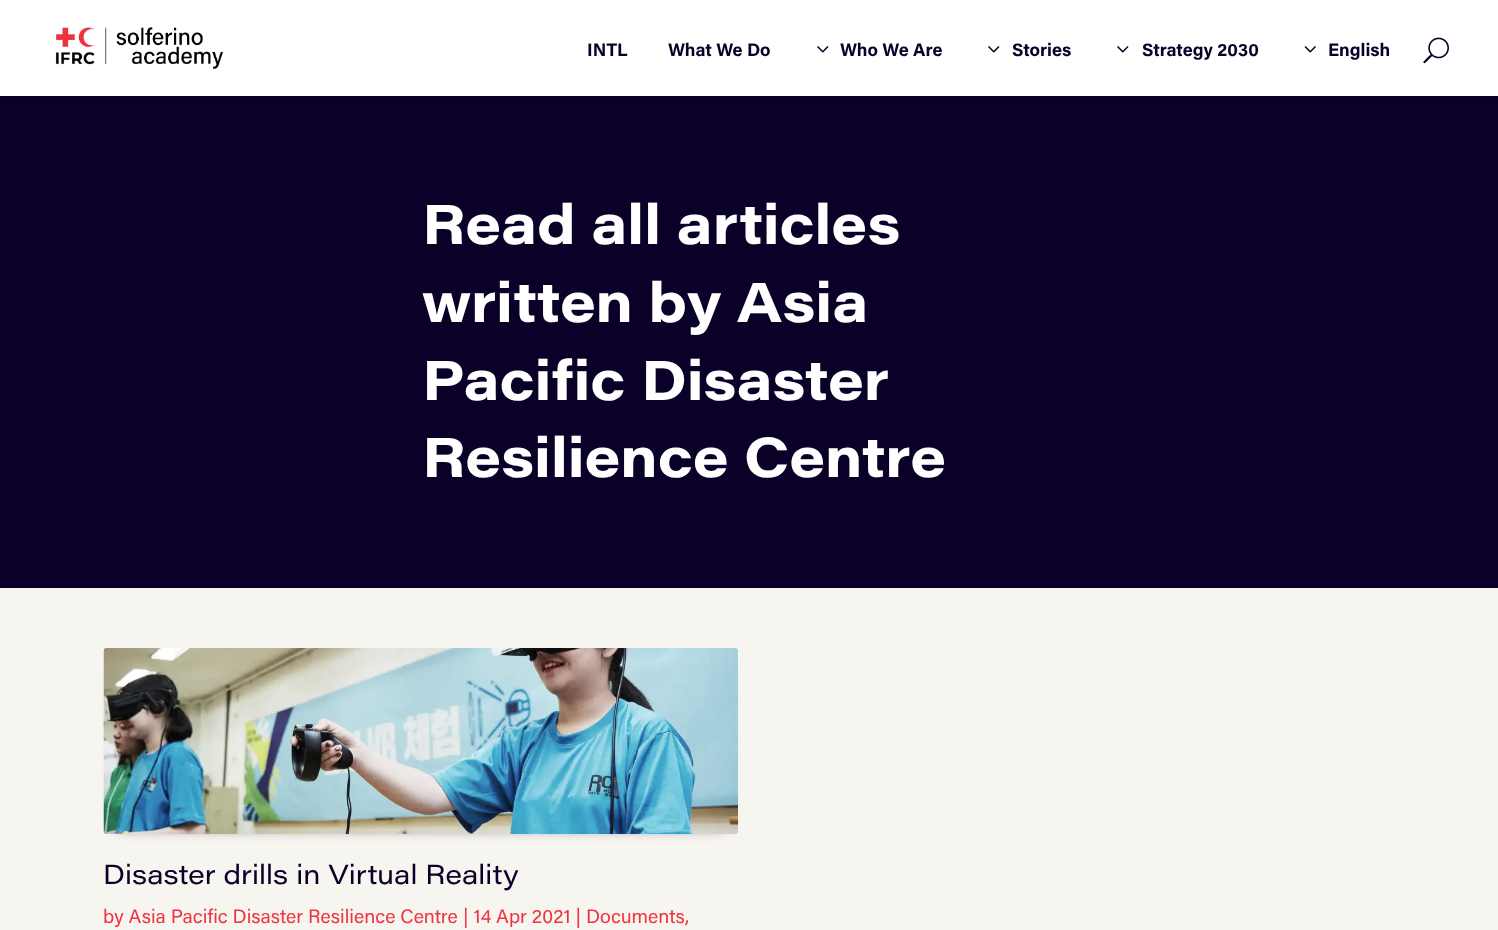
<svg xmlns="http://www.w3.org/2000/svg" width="1498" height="930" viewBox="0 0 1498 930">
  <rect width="100%" height="100%" fill="#f7f5f0"/>
  <path d="M0 96V98H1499V2H1498V96Z" fill="#0a0024"/>
  <path d="M0 0h1498v96H0z" fill="#fff"/>
  <image x="55" y="27" width="169" height="42" href="img/1.png"/>
  <image x="817" y="46" width="12" height="7" href="img/2.png"/>
  <image x="988" y="46" width="12" height="7" href="img/2.png"/>
  <image x="1117" y="46" width="12" height="7" href="img/2.png"/>
  <image x="1304" y="46" width="12" height="7" href="img/3.png"/>
  <image x="1423" y="37" width="26" height="27" href="img/4.png"/>
  <path d="M0 98h1498v490H0z" fill="#0b0028"/>
  <path d="M119 669h604v156H119z" fill="#0b0028" filter="blur(7.5px)"/>
  <image x="103" y="648" width="635" height="186" href="img/5.png"/>
  <g font-family="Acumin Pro" font-size="18" font-weight="bold" fill="#0b0028">
    <text x="587" y="56">INTL</text>
    <text x="668" y="56">What We Do</text>
    <text x="840" y="56">Who We Are</text>
    <text x="1012" y="56">Stories</text>
    <text x="1142" y="56">Strategy 2030</text>
    <text x="1328" y="56">English</text>
  </g>
  <g font-family="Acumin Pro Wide" font-size="55.5" font-weight="bold" fill="#fff">
    <text x="422" y="244">Read all articles</text>
    <text x="422" y="322">written by Asia</text>
    <text x="422" y="400">Pacific Disaster</text>
    <text x="422" y="477">Resilience Centre</text>
  </g>
  <text x="103" y="884" font-family="Acumin Pro Wide" font-size="27" fill="#0b0028">Disaster drills in Virtual Reality</text>
  <g font-family="Acumin Pro" font-size="19.5" fill="#ef3340">
    <text x="103" y="923">by Asia Pacific Disaster Resilience Centre</text>
    <text x="463" y="923">| 14 Apr 2021 | Documents</text>
    <text x="685" y="923">,</text>
  </g>
</svg>
